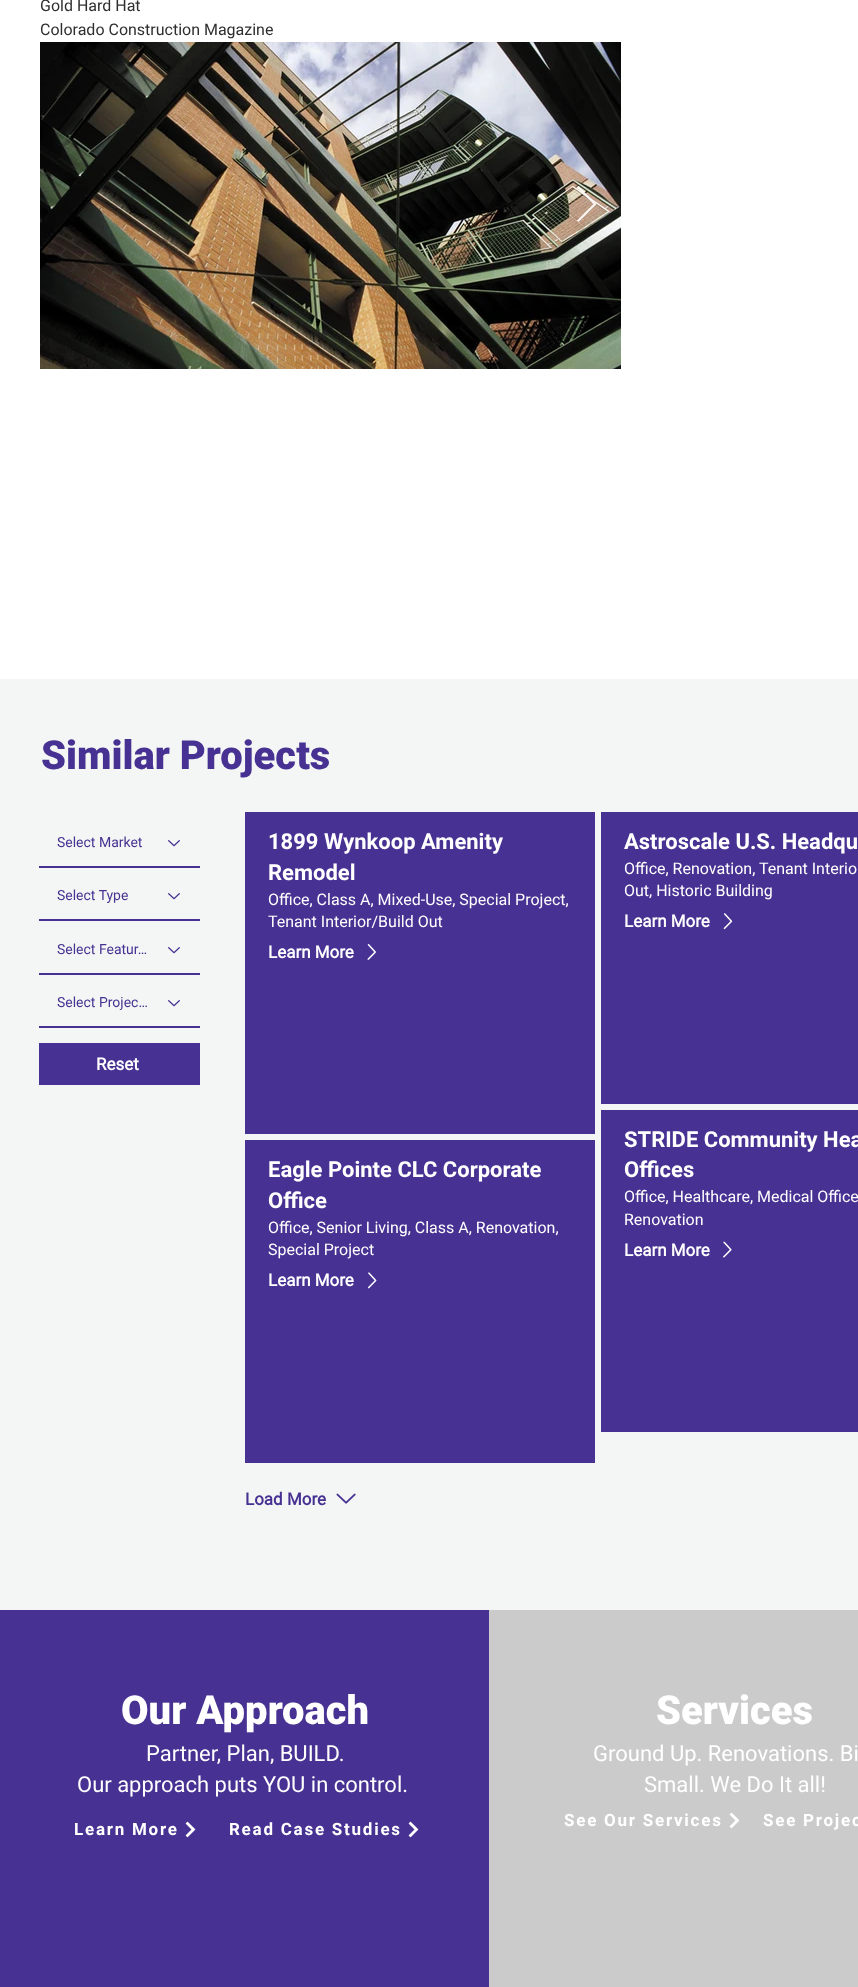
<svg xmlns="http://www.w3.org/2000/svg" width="858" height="1987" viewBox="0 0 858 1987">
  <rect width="100%" height="100%" fill="#fff"/>
  <image x="40" y="42" width="581" height="327" href="img/1.png"/>
  <path d="M577 187.5L578.5 186L596.5 204L578.5 222L577 220.5L593.5 204Z" fill="#ffffffe6"/>
  <path d="M0 679h858v931H0z" fill="#f3f6f4"/>
  <path d="M39 866h161v2H39z" fill="#473192"/>
  <image x="168" y="840" width="12" height="7" href="img/2.png"/>
  <path d="M245 812h350v322H245z" fill="#473192"/>
  <image x="367" y="944" width="9" height="16" href="img/3.png"/>
  <path d="M245 1140h350v323H245z" fill="#473192"/>
  <image x="367" y="1272" width="10" height="17" href="img/4.png"/>
  <path d="M601 812h257v292H601z" fill="#473192"/>
  <image x="723" y="913" width="10" height="17" href="img/5.png"/>
  <path d="M601 1110h257v322H601z" fill="#473192"/>
  <image x="723" y="1241" width="9" height="17" href="img/6.png"/>
  <path d="M39 919h161v2H39z" fill="#473192"/>
  <image x="168" y="893" width="12" height="7" href="img/2.png"/>
  <path d="M39 973h161v2H39z" fill="#473192"/>
  <image x="168" y="947" width="12" height="7" href="img/2.png"/>
  <path d="M39 1026h161v2H39z" fill="#473192"/>
  <image x="168" y="1000" width="12" height="7" href="img/2.png"/>
  <path d="M39 1043h161v42H39z" fill="#473192"/>
  <image x="336" y="1493" width="20" height="11" href="img/7.png"/>
  <path d="M0 1610h489v377H0z" fill="#473192"/>
  <image x="185" y="1821" width="11" height="17" href="img/8.png"/>
  <image x="408" y="1821" width="11" height="17" href="img/8.png"/>
  <path d="M489 1610h369v377H489z" fill="#cbcbcb"/>
  <image x="729" y="1812" width="11" height="17" href="img/9.png"/>
  <g font-family="Roboto" font-size="16" fill="#2f2e2e">
    <text x="40" y="11">Gold Hard Hat</text>
    <text x="40" y="35">Colorado Construction Magazine</text>
  </g>
  <text x="41" y="769" font-family="Roboto" font-size="40" font-weight="900" fill="#473192">Similar Projects</text>
  <text x="57" y="847" font-family="Roboto" font-size="14" fill="#473192">Select Market</text>
  <g font-family="'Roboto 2'" font-size="22" font-weight="bold" fill="#fff">
    <text x="268" y="849">1899 Wynkoop Amenity</text>
    <text x="268" y="880">Remodel</text>
  </g>
  <g font-family="Roboto" font-size="16" fill="#fff">
    <text x="268" y="905">Office, Class A, Mixed-Use, Special Project,</text>
    <text x="268" y="927">Tenant Interior/Build Out</text>
  </g>
  <text x="268" y="958" font-family="Roboto" font-size="17" font-weight="bold" fill="#fff">Learn More</text>
  <g font-family="'Roboto 2'" font-size="22" font-weight="bold" fill="#fff">
    <text x="268" y="1177">Eagle Pointe CLC Corporate</text>
    <text x="268" y="1208">Office</text>
  </g>
  <g font-family="Roboto" font-size="16" fill="#fff">
    <text x="268" y="1233">Office, Senior Living, Class A, Renovation,</text>
    <text x="268" y="1255">Special Project</text>
  </g>
  <text x="268" y="1286" font-family="Roboto" font-size="17" font-weight="bold" fill="#fff">Learn More</text>
  <text x="624" y="849" font-family="'Roboto 2'" font-size="22" font-weight="bold" fill="#fff">Astroscale U.S. Headqu</text>
  <g font-family="Roboto" font-size="16" fill="#fff">
    <text x="624" y="874">Office, Renovation, Tenant Interio</text>
    <text x="624" y="896">Out, Historic Building</text>
  </g>
  <text x="624" y="927" font-family="Roboto" font-size="17" font-weight="bold" fill="#fff">Learn More</text>
  <g font-family="'Roboto 2'" font-size="22" font-weight="bold" fill="#fff">
    <text x="624" y="1147">STRIDE Community Hea</text>
    <text x="624" y="1177">Offices</text>
  </g>
  <g font-family="Roboto" font-size="16" fill="#fff">
    <text x="624" y="1202">Office, Healthcare, Medical Office</text>
    <text x="624" y="1225">Renovation</text>
  </g>
  <text x="624" y="1256" font-family="Roboto" font-size="17" font-weight="bold" fill="#fff">Learn More</text>
  <g font-family="Roboto" font-size="14" fill="#473192">
    <text x="57" y="900">Select Type</text>
    <text x="57" y="954">Select Featur…</text>
    <text x="57" y="1007">Select Projec…</text>
  </g>
  <text x="96" y="1070" font-family="Roboto" font-size="17" font-weight="bold" fill="#fff">Reset</text>
  <text x="245" y="1505" font-family="Roboto" font-size="17" font-weight="bold" fill="#473192">Load More</text>
  <text x="121" y="1724" font-family="Roboto" font-size="40" font-weight="900" fill="#fff">Our Approach</text>
  <g font-family="Roboto" font-size="22" fill="#fff">
    <text x="146" y="1761">Partner, Plan, BUILD.</text>
    <text x="77" y="1792">Our approach puts YOU in control.</text>
  </g>
  <g font-family="'Roboto 2'" font-size="17" font-weight="bold" letter-spacing="1.75" fill="#fff">
    <text x="74" y="1835">Learn More</text>
    <text x="229" y="1835">Read Case Studies</text>
  </g>
  <text x="656" y="1724" font-family="Roboto" font-size="40" font-weight="900" fill="#fff">Services</text>
  <g font-family="Roboto" font-size="22" fill="#fff">
    <text x="593" y="1761">Ground Up. Renovations. Bi</text>
    <text x="644" y="1792">Small. We Do It all!</text>
  </g>
  <g font-family="'Roboto 2'" font-size="17" font-weight="bold" letter-spacing="1.75" fill="#fff">
    <text x="564" y="1826">See Our Services</text>
    <text x="763" y="1826">See Projec</text>
  </g>
</svg>
